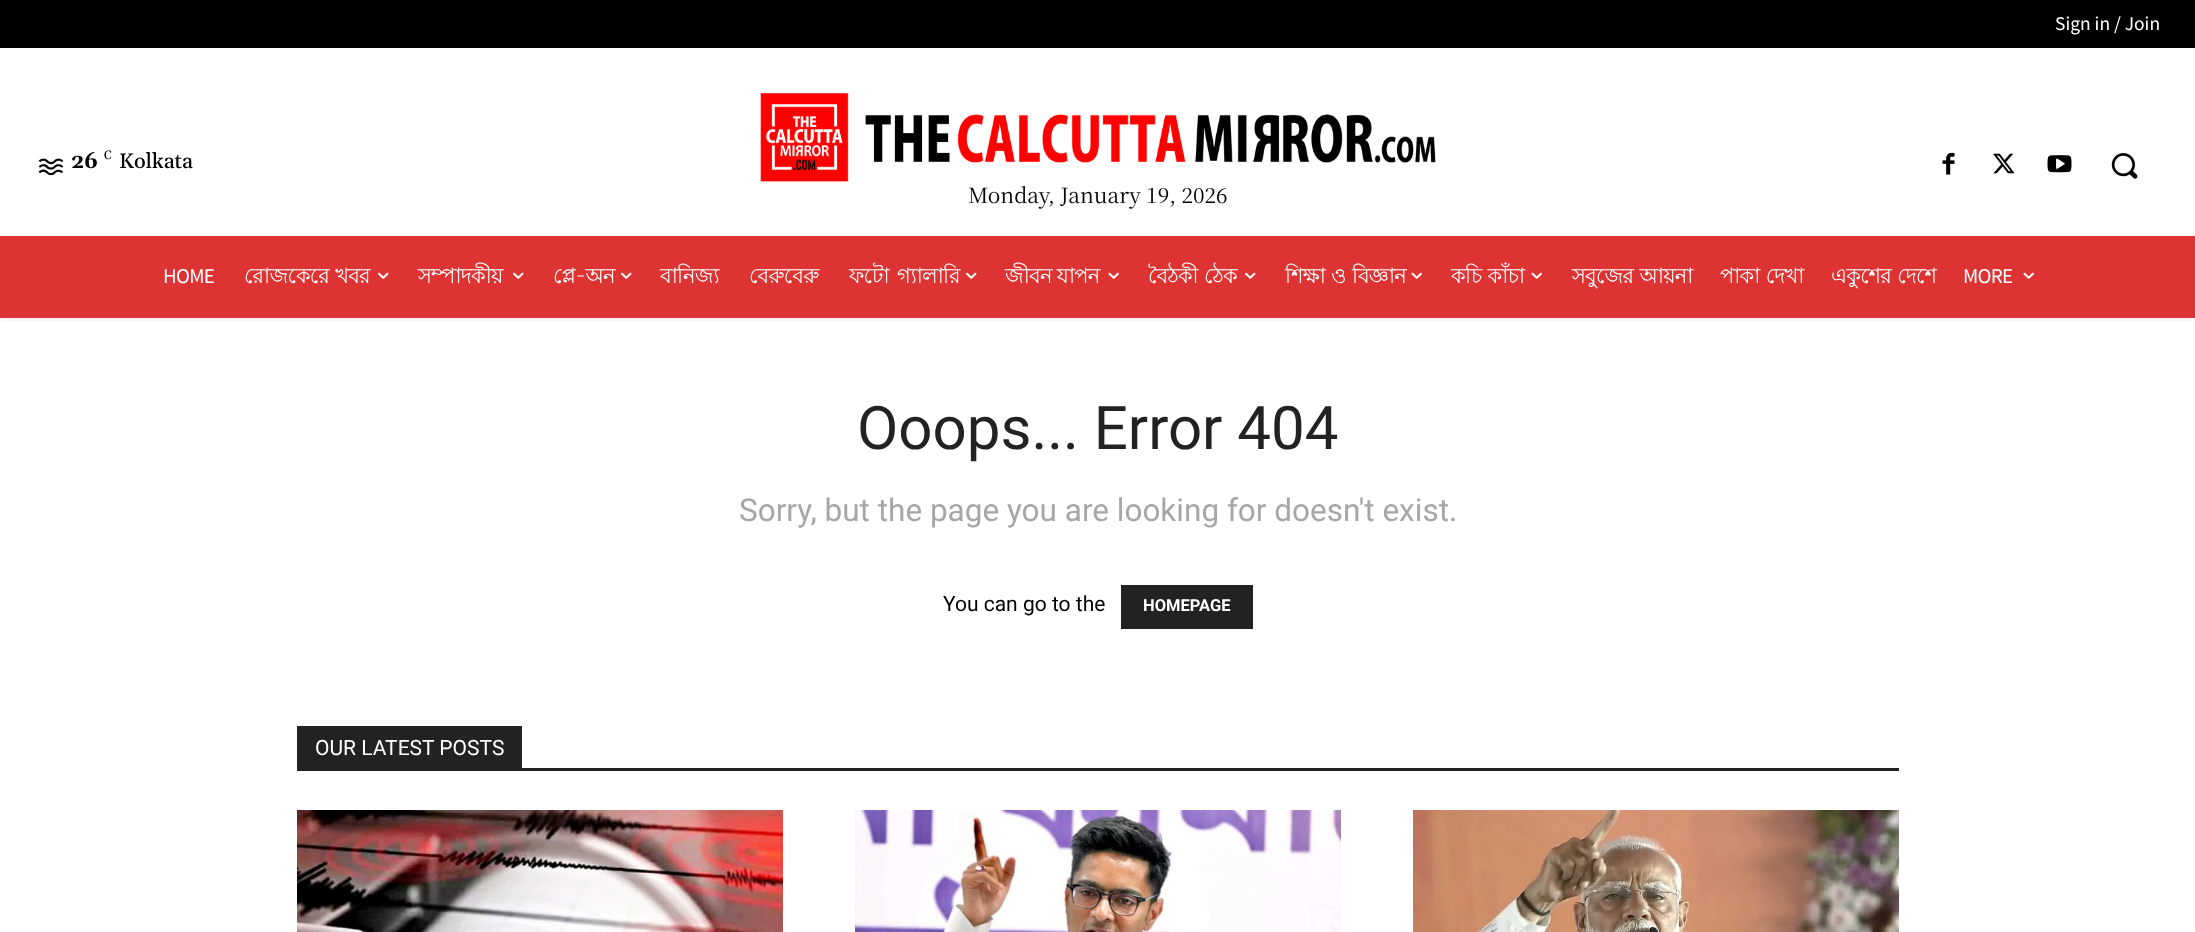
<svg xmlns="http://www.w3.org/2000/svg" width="2195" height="932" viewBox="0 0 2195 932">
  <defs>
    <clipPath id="clip1"><path d="M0 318h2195v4H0z"/></clipPath>
  </defs>
  <rect width="100%" height="100%" fill="#fff"/>
  <path d="M0 0h2195v48H0z" fill="#000"/>
  <image x="38" y="158" width="26" height="18" href="img/1.png"/>
  <image x="1942" y="152" width="13" height="23" href="img/2.png"/>
  <image x="1993" y="153" width="22" height="21" href="img/3.png"/>
  <image x="2047" y="155" width="25" height="18" href="img/4.png"/>
  <image x="2111" y="153" width="27" height="26" href="img/5.png"/>
  <image x="760" y="93" width="676" height="89" href="img/6.png"/>
  <path d="M0 236h2195v82H0z" fill="#d33"/>
  <g clip-path="url(#clip1)">
    <path d="M0 239h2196v82H0z" fill="#0000000f" filter="blur(3px)"/>
  </g>
  <image x="378" y="272" width="11" height="7" href="img/7.png"/>
  <image x="513" y="272" width="11" height="7" href="img/7.png"/>
  <image x="621" y="272" width="11" height="7" href="img/7.png"/>
  <image x="966" y="272" width="11" height="7" href="img/7.png"/>
  <image x="1108" y="272" width="11" height="7" href="img/8.png"/>
  <image x="1245" y="272" width="11" height="7" href="img/7.png"/>
  <image x="1411" y="272" width="11" height="7" href="img/8.png"/>
  <image x="1531" y="272" width="11" height="7" href="img/8.png"/>
  <image x="2023" y="272" width="11" height="7" href="img/8.png"/>
  <path d="M1121 585h132v44H1121z" fill="#222"/>
  <path d="M297 768h1602v3H297z" fill="#222"/>
  <path d="M297 726h225v42H297z" fill="#222"/>
  <image x="297" y="810" width="486" height="122" href="img/9.png"/>
  <image x="855" y="810" width="486" height="122" href="img/10.png"/>
  <image x="1413" y="810" width="486" height="122" href="img/11.png"/>
  <text x="2055" y="30" font-family="Source Sans Pro" font-size="19.5" fill="#fff">Sign in / Join</text>
  <text x="71" y="168" font-family="Gelasio" font-size="21" font-weight="bold" fill="#000">26</text>
  <text x="104" y="159" font-family="Gelasio" font-size="12" fill="#000">C</text>
  <text x="119" y="168" font-family="Gelasio" font-size="21" font-weight="500" fill="#000">Kolkata</text>
  <text x="968" y="203" font-family="Noto Serif TC" font-size="21" font-weight="200" fill="#000">Monday, January 19, 2026</text>
  <text x="163" y="283" font-family="Source Sans Pro" font-size="21" letter-spacing="-0.75" fill="#fff">HOME</text>
  <g font-family="Lohit Bengali" font-size="21" letter-spacing="-0.75" fill="#fff">
    <text x="244" y="283" word-spacing="1">রোজকেরে খবর</text>
    <text x="418" y="283">সম্পাদকীয়</text>
    <text x="553" y="283">প্লে-অন</text>
    <text x="660" y="283">বানিজ্য</text>
    <text x="749" y="283">বেরুবেরু</text>
    <text x="849" y="283" word-spacing="3">ফটো গ্যালারি</text>
    <text x="1005" y="283">জীবন যাপন</text>
    <text x="1148" y="283" word-spacing="1">বৈঠকী ঠেক</text>
    <text x="1285" y="283" word-spacing="1">শিক্ষা ও বিজ্ঞান</text>
    <text x="1451" y="283" word-spacing="1">কচি কাঁচা</text>
    <text x="1572" y="283" word-spacing="1">সবুজের আয়না</text>
    <text x="1720" y="283" word-spacing="1">পাকা দেখা</text>
    <text x="1831" y="283" word-spacing="1">একুশের দেশে</text>
  </g>
  <text x="1963" y="283" font-family="Source Sans Pro" font-size="21" letter-spacing="-0.75" fill="#fff">MORE</text>
  <text x="857" y="449" font-family="Roboto" font-size="60" fill="#222">Ooops... Error 404</text>
  <text x="739" y="521" font-family="Roboto" font-size="31.5" fill="#a6a6a6">Sorry, but the page you are looking for doesn't exist.</text>
  <text x="943" y="611" font-family="Roboto" font-size="21" fill="#000">You can go to the</text>
  <text x="1143" y="611" font-family="Roboto" font-size="16.5" font-weight="bold" fill="#fff">HOMEPAGE</text>
  <text x="315" y="755" font-family="Roboto" font-size="21" fill="#fff">OUR LATEST POSTS</text>
</svg>
